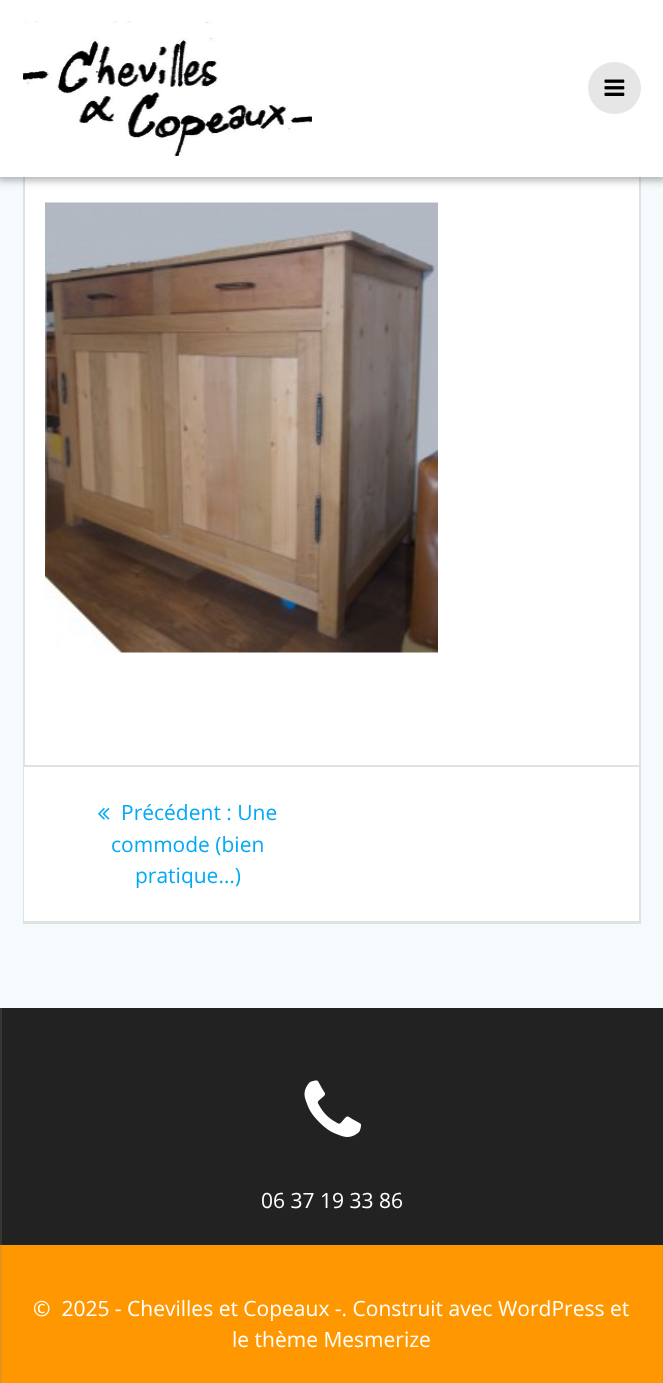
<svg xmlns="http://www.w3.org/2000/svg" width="663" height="1383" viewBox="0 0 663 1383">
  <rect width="100%" height="100%" fill="#222"/>
  <path d="M0 177h663v831H0z" fill="#f5fafd"/>
  <path d="M25 177h614v588H25z" fill="#fff"/>
  <path d="M24 97h616v826H24z" fill="none" stroke="#e0e1e1" stroke-width="2"/>
  <path d="M-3 -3h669v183H-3z" fill="#00000054" filter="blur(4px)"/>
  <path d="M0 0h663v177H0z" fill="#fff"/>
  <image x="23" y="21" width="289" height="135" href="img/1.png"/>
  <rect x="588" y="62" width="53" height="52" rx="26" fill="#e6e6e6"/>
  <image x="604" y="79" width="21" height="17" href="img/2.png"/>
  <image x="45" y="202" width="393" height="451" href="img/3.png"/>
  <path d="M24 767h615v154H24z" fill="#fff"/>
  <path d="M24 765h615v2H24z" fill="#e0e1e1"/>
  <path d="M24 921h615v1H24z" fill="#e0e1e1"/>
  <image x="98" y="808" width="12" height="12" href="img/4.png"/>
  <path d="M0 1008h2v237H0z" fill="#353535"/>
  <image x="304" y="1080" width="58" height="57" href="img/5.png"/>
  <path d="M2 1245h660v138H2z" fill="#ff9800"/>
  <path d="M662 1245h1v138H662z" fill="#e6931a"/>
  <path d="M0 1245h2v138H0z" fill="#e6931a"/>
  <g font-family="Open Sans" font-size="21" fill="#03a9f4">
    <text x="121" y="820">Précédent : Une</text>
    <text x="111" y="852">commode (bien</text>
    <text x="135" y="883">pratique…)</text>
  </g>
  <g font-family="Open Sans" font-size="21" fill="#fff">
    <text x="261" y="1208">06 37 19 33 86</text>
    <text x="33" y="1316" xml:space="preserve">©  2025 - Chevilles et Copeaux -. Construit avec WordPress et</text>
    <text x="232" y="1347">le thème Mesmerize</text>
  </g>
</svg>
